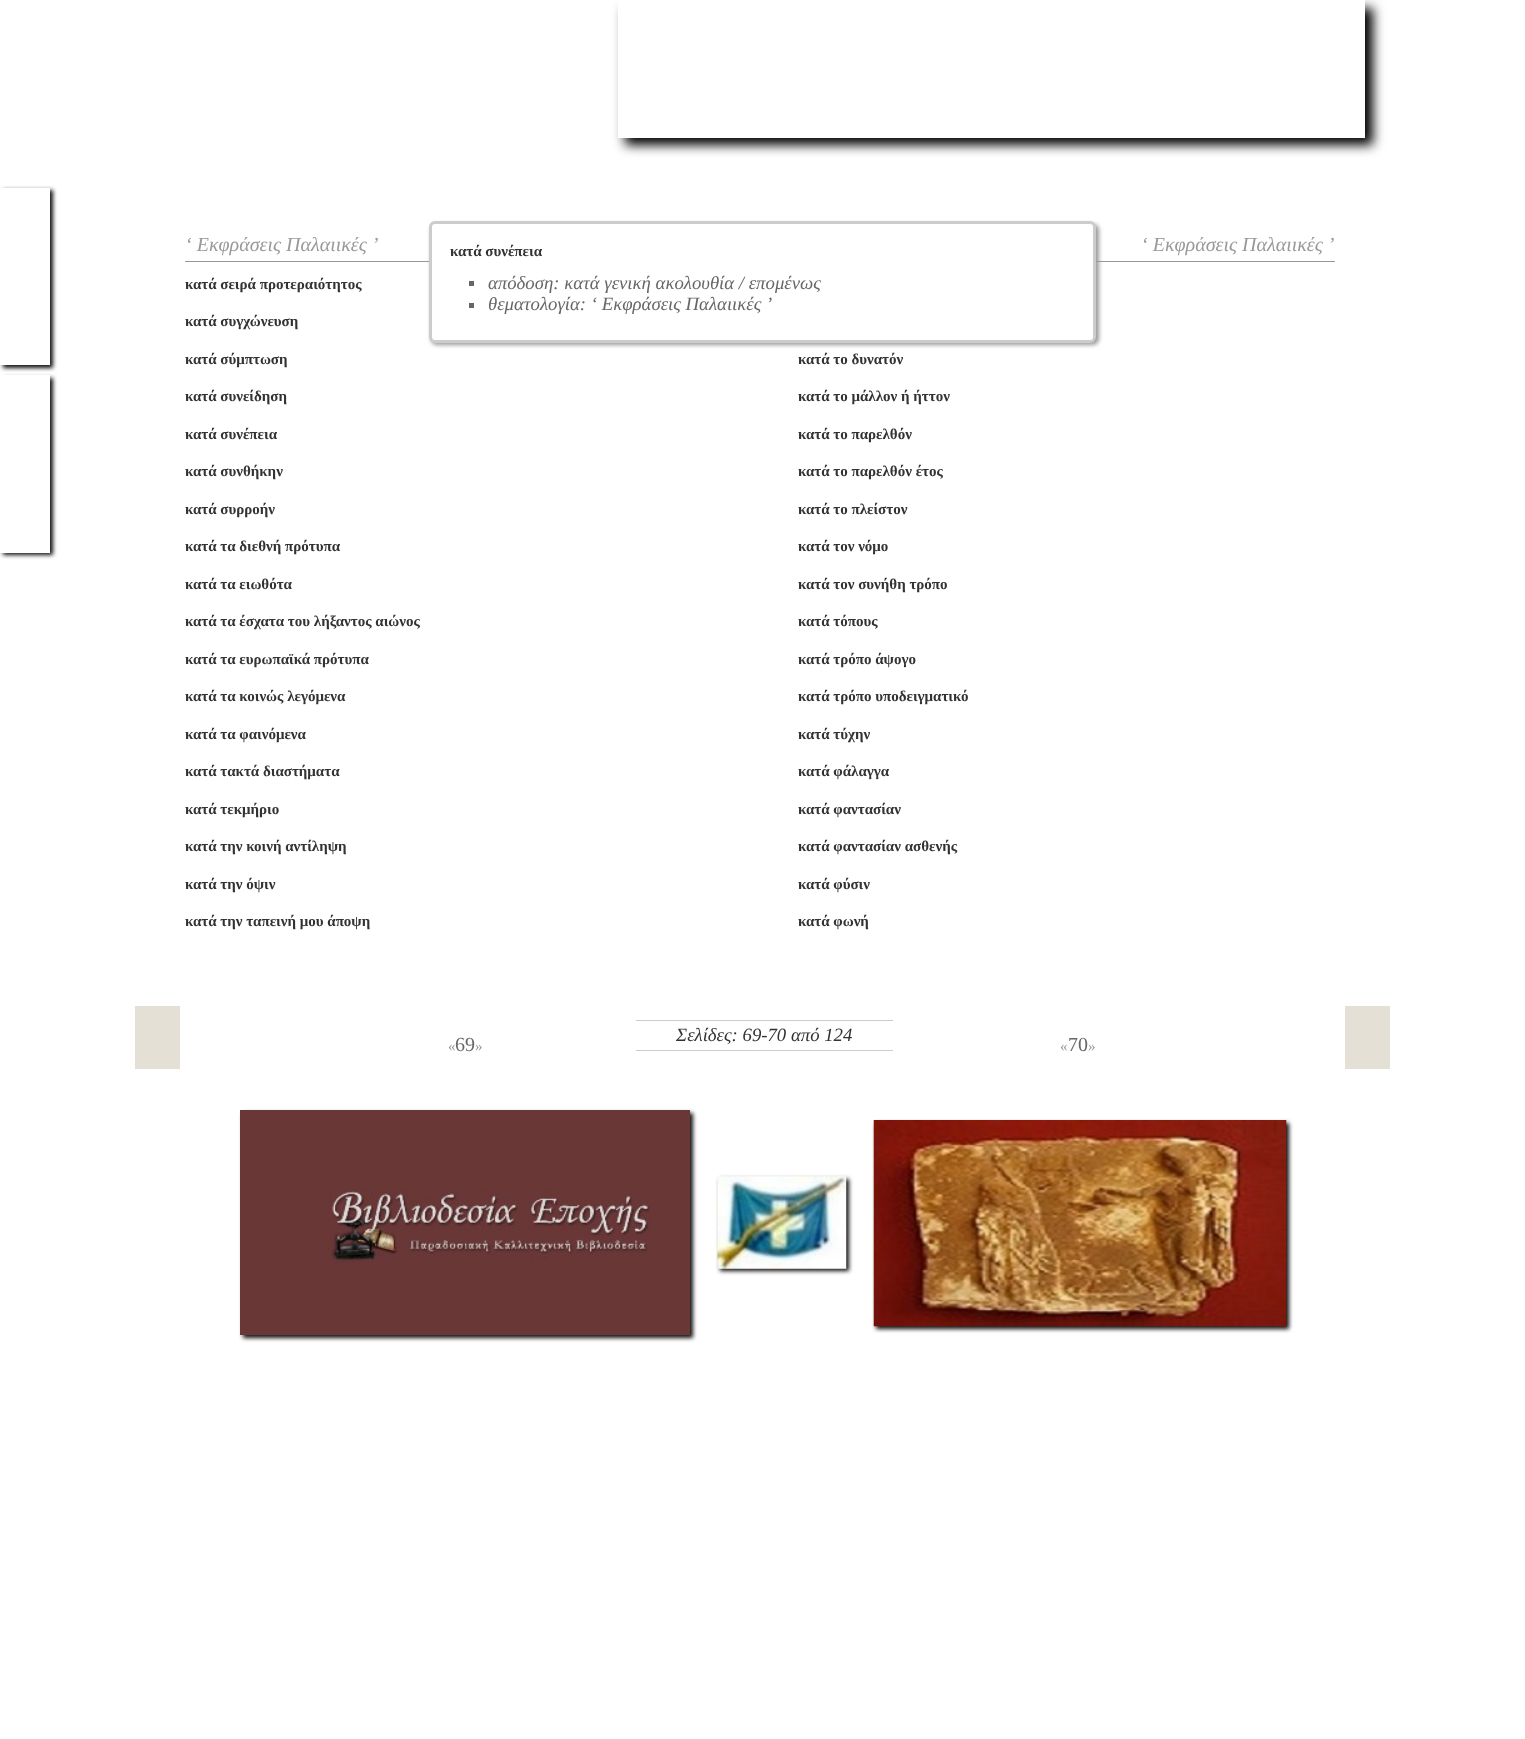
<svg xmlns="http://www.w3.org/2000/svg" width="1525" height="1739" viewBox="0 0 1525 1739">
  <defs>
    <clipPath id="clip1"><path d="M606 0H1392V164H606ZM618 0H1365V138H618Z" clip-rule="evenodd"/></clipPath>
    <clipPath id="clip2"><path d="M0 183H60V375H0ZM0 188H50V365H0Z" clip-rule="evenodd"/></clipPath>
    <clipPath id="clip3"><path d="M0 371H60V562H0ZM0 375H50V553H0Z" clip-rule="evenodd"/></clipPath>
  </defs>
  <rect width="100%" height="100%" fill="#fff"/>
  <g clip-path="url(#clip1)">
    <path d="M625 8h748v137H625z" fill="#000" filter="blur(6px)"/>
  </g>
  <g clip-path="url(#clip2)">
    <path d="M3 190h50v178H3z" fill="#111" filter="blur(2px)"/>
  </g>
  <path d="M185 261h244v1H185z" fill="#999"/>
  <path d="M1096 261h239v1H1096z" fill="#999"/>
  <rect x="431" y="224" width="668" height="121" rx="6" fill="#999" filter="blur(2px)"/>
  <rect x="430.5" y="222.5" width="664" height="119" rx="4.5" fill="#fff" stroke="#ccc" stroke-width="3"/>
  <path d="M469 281h5v5H469z" fill="#666"/>
  <path d="M469 303h5v5H469z" fill="#666"/>
  <path d="M135 1006h45v63H135z" fill="#e4e0d5"/>
  <path d="M636 1020h257v1H636z" fill="#ccc"/>
  <path d="M636 1050h257v1H636z" fill="#ccc"/>
  <path d="M1345 1006h45v63H1345z" fill="#e4e0d5"/>
  <g clip-path="url(#clip3)">
    <path d="M3 378h50v177H3z" fill="#111" filter="blur(2px)"/>
  </g>
  <path d="M243 1113h450v225H243z" fill="#111" filter="blur(2px)"/>
  <image x="240" y="1110" width="450" height="225" href="img/1.png"/>
  <path d="M720 1179h129v92H720z" fill="#111" filter="blur(2px)"/>
  <image x="717" y="1176" width="130" height="93" href="img/2.png"/>
  <path d="M876 1123h413v206H876z" fill="#111" filter="blur(2px)"/>
  <image x="873" y="1120" width="414" height="207" href="img/3.png"/>
  <text x="185" y="251" font-family="Liberation Serif" font-size="20" font-style="italic" fill="#999">‘ Εκφράσεις Παλαιικές ’</text>
  <g font-family="Liberation Serif" font-size="15" font-weight="bold" fill="#333">
    <text x="185" y="289">κατά σειρά προτεραιότητος</text>
    <text x="185" y="326">κατά συγχώνευση</text>
    <text x="185" y="364">κατά σύμπτωση</text>
    <text x="185" y="401">κατά συνείδηση</text>
    <text x="185" y="439">κατά συνέπεια</text>
    <text x="185" y="476">κατά συνθήκην</text>
    <text x="185" y="514">κατά συρροήν</text>
    <text x="185" y="551">κατά τα διεθνή πρότυπα</text>
    <text x="185" y="589">κατά τα ειωθότα</text>
    <text x="185" y="626">κατά τα έσχατα του λήξαντος αιώνος</text>
    <text x="185" y="664">κατά τα ευρωπαϊκά πρότυπα</text>
    <text x="185" y="701">κατά τα κοινώς λεγόμενα</text>
    <text x="185" y="739">κατά τα φαινόμενα</text>
    <text x="185" y="776">κατά τακτά διαστήματα</text>
    <text x="185" y="814">κατά τεκμήριο</text>
    <text x="185" y="851">κατά την κοινή αντίληψη</text>
    <text x="185" y="889">κατά την όψιν</text>
    <text x="185" y="926">κατά την ταπεινή μου άποψη</text>
  </g>
  <text x="448" y="1051" font-family="Liberation Serif" font-size="15" fill="#999">«</text>
  <text x="455" y="1051" font-family="Liberation Serif" font-size="20" fill="#666">69</text>
  <text x="475" y="1051" font-family="Liberation Serif" font-size="15" fill="#999">»</text>
  <text x="1141" y="251" font-family="Liberation Serif" font-size="20" font-style="italic" fill="#999">‘ Εκφράσεις Παλαιικές ’</text>
  <g font-family="Liberation Serif" font-size="15" font-weight="bold" fill="#333">
    <text x="798" y="364">κατά το δυνατόν</text>
    <text x="798" y="401">κατά το μάλλον ή ήττον</text>
    <text x="798" y="439">κατά το παρελθόν</text>
    <text x="798" y="476">κατά το παρελθόν έτος</text>
    <text x="798" y="514">κατά το πλείστον</text>
    <text x="798" y="551">κατά τον νόμο</text>
    <text x="798" y="589">κατά τον συνήθη τρόπο</text>
    <text x="798" y="626">κατά τόπους</text>
    <text x="798" y="664">κατά τρόπο άψογο</text>
    <text x="798" y="701">κατά τρόπο υποδειγματικό</text>
    <text x="798" y="739">κατά τύχην</text>
    <text x="798" y="776">κατά φάλαγγα</text>
    <text x="798" y="814">κατά φαντασίαν</text>
    <text x="798" y="851">κατά φαντασίαν ασθενής</text>
    <text x="798" y="889">κατά φύσιν</text>
    <text x="798" y="926">κατά φωνή</text>
  </g>
  <text x="1060" y="1051" font-family="Liberation Serif" font-size="15" fill="#999">«</text>
  <text x="1068" y="1051" font-family="Liberation Serif" font-size="20" fill="#666">70</text>
  <text x="1088" y="1051" font-family="Liberation Serif" font-size="15" fill="#999">»</text>
  <text x="450" y="256" font-family="Liberation Serif" font-size="15" font-weight="bold" fill="#333">κατά συνέπεια</text>
  <g font-family="Liberation Serif" font-size="18.75" font-style="italic" fill="#666">
    <text x="488" y="289">απόδοση: κατά γενική ακολουθία / επομένως</text>
    <text x="488" y="310">θεματολογία: ‘ Εκφράσεις Παλαιικές ’</text>
  </g>
  <text x="676" y="1041" font-family="Liberation Serif" font-size="18.75" font-style="italic" fill="#333">Σελίδες: 69-70 από 124</text>
</svg>
